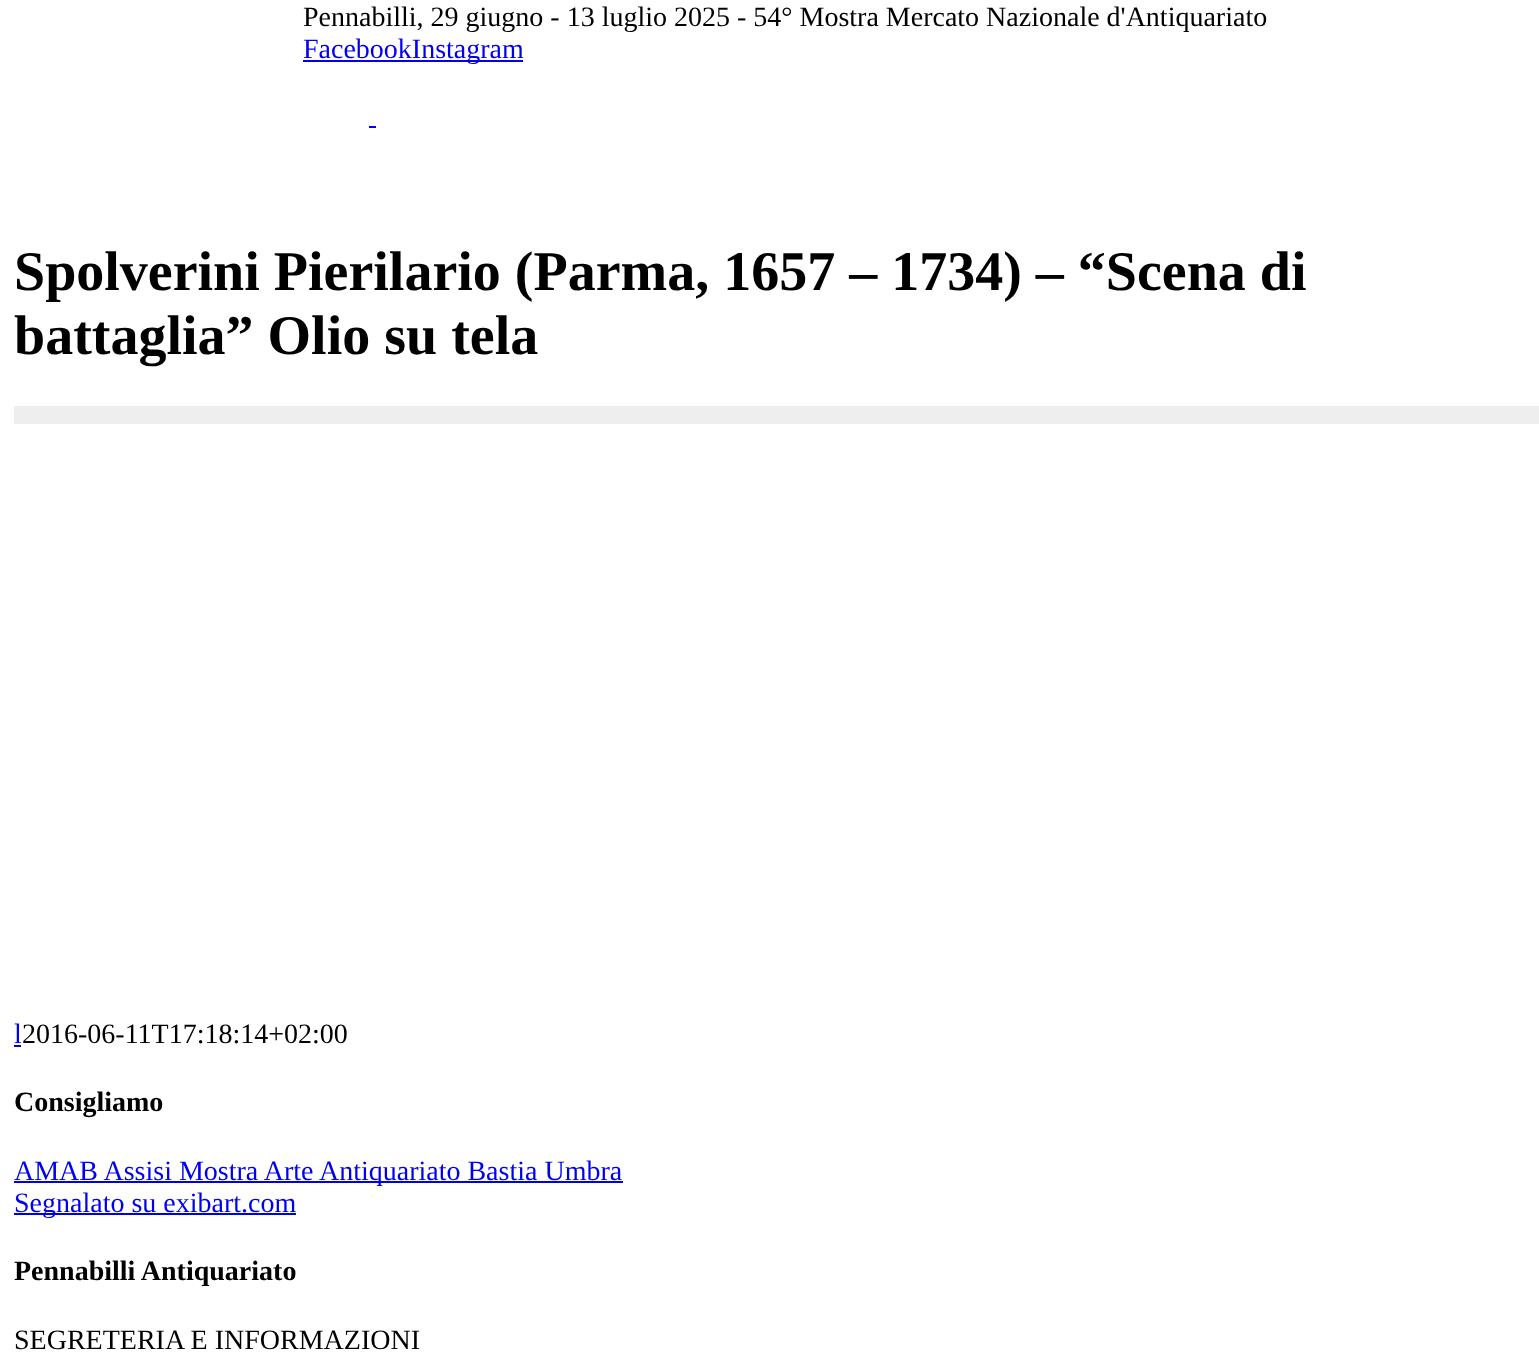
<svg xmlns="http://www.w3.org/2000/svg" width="1539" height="1363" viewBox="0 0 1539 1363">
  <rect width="100%" height="100%" fill="#fff"/>
  <path d="M303 60h220v2H303z" fill="#00e"/>
  <path d="M369 126h7v2H369z" fill="#00e"/>
  <path d="M14 406h1525v18H14z" fill="#eee"/>
  <path d="M14 1045h7v2H14z" fill="#00e"/>
  <path d="M14 1181h609v2H14z" fill="#00e"/>
  <path d="M14 1213h282v2H14z" fill="#00e"/>
  <text x="303" y="26" font-family="Liberation Serif" font-size="28" fill="#000">Pennabilli, 29 giugno - 13 luglio 2025 - 54° Mostra Mercato Nazionale d'Antiquariato</text>
  <text x="303" y="58" font-family="Liberation Serif" font-size="28" fill="#00e">FacebookInstagram</text>
  <g font-family="Liberation Serif" font-size="56" font-weight="bold" fill="#000">
    <text x="14" y="290">Spolverini Pierilario (Parma, 1657 – 1734) – “Scena di</text>
    <text x="14" y="354">battaglia” Olio su tela</text>
  </g>
  <text x="14" y="1043" font-family="Liberation Serif" font-size="28" fill="#00e">l</text>
  <text x="22" y="1043" font-family="Liberation Serif" font-size="28" fill="#000">2016-06-11T17:18:14+02:00</text>
  <text x="14" y="1111" font-family="Liberation Serif" font-size="28" font-weight="bold" fill="#000">Consigliamo</text>
  <g font-family="Liberation Serif" font-size="28" fill="#00e">
    <text x="14" y="1180">AMAB Assisi Mostra Arte Antiquariato Bastia Umbra</text>
    <text x="14" y="1212">Segnalato su exibart.com</text>
  </g>
  <text x="14" y="1280" font-family="Liberation Serif" font-size="28" font-weight="bold" fill="#000">Pennabilli Antiquariato</text>
  <text x="14" y="1349" font-family="Liberation Serif" font-size="28" fill="#000">SEGRETERIA E INFORMAZIONI</text>
</svg>
